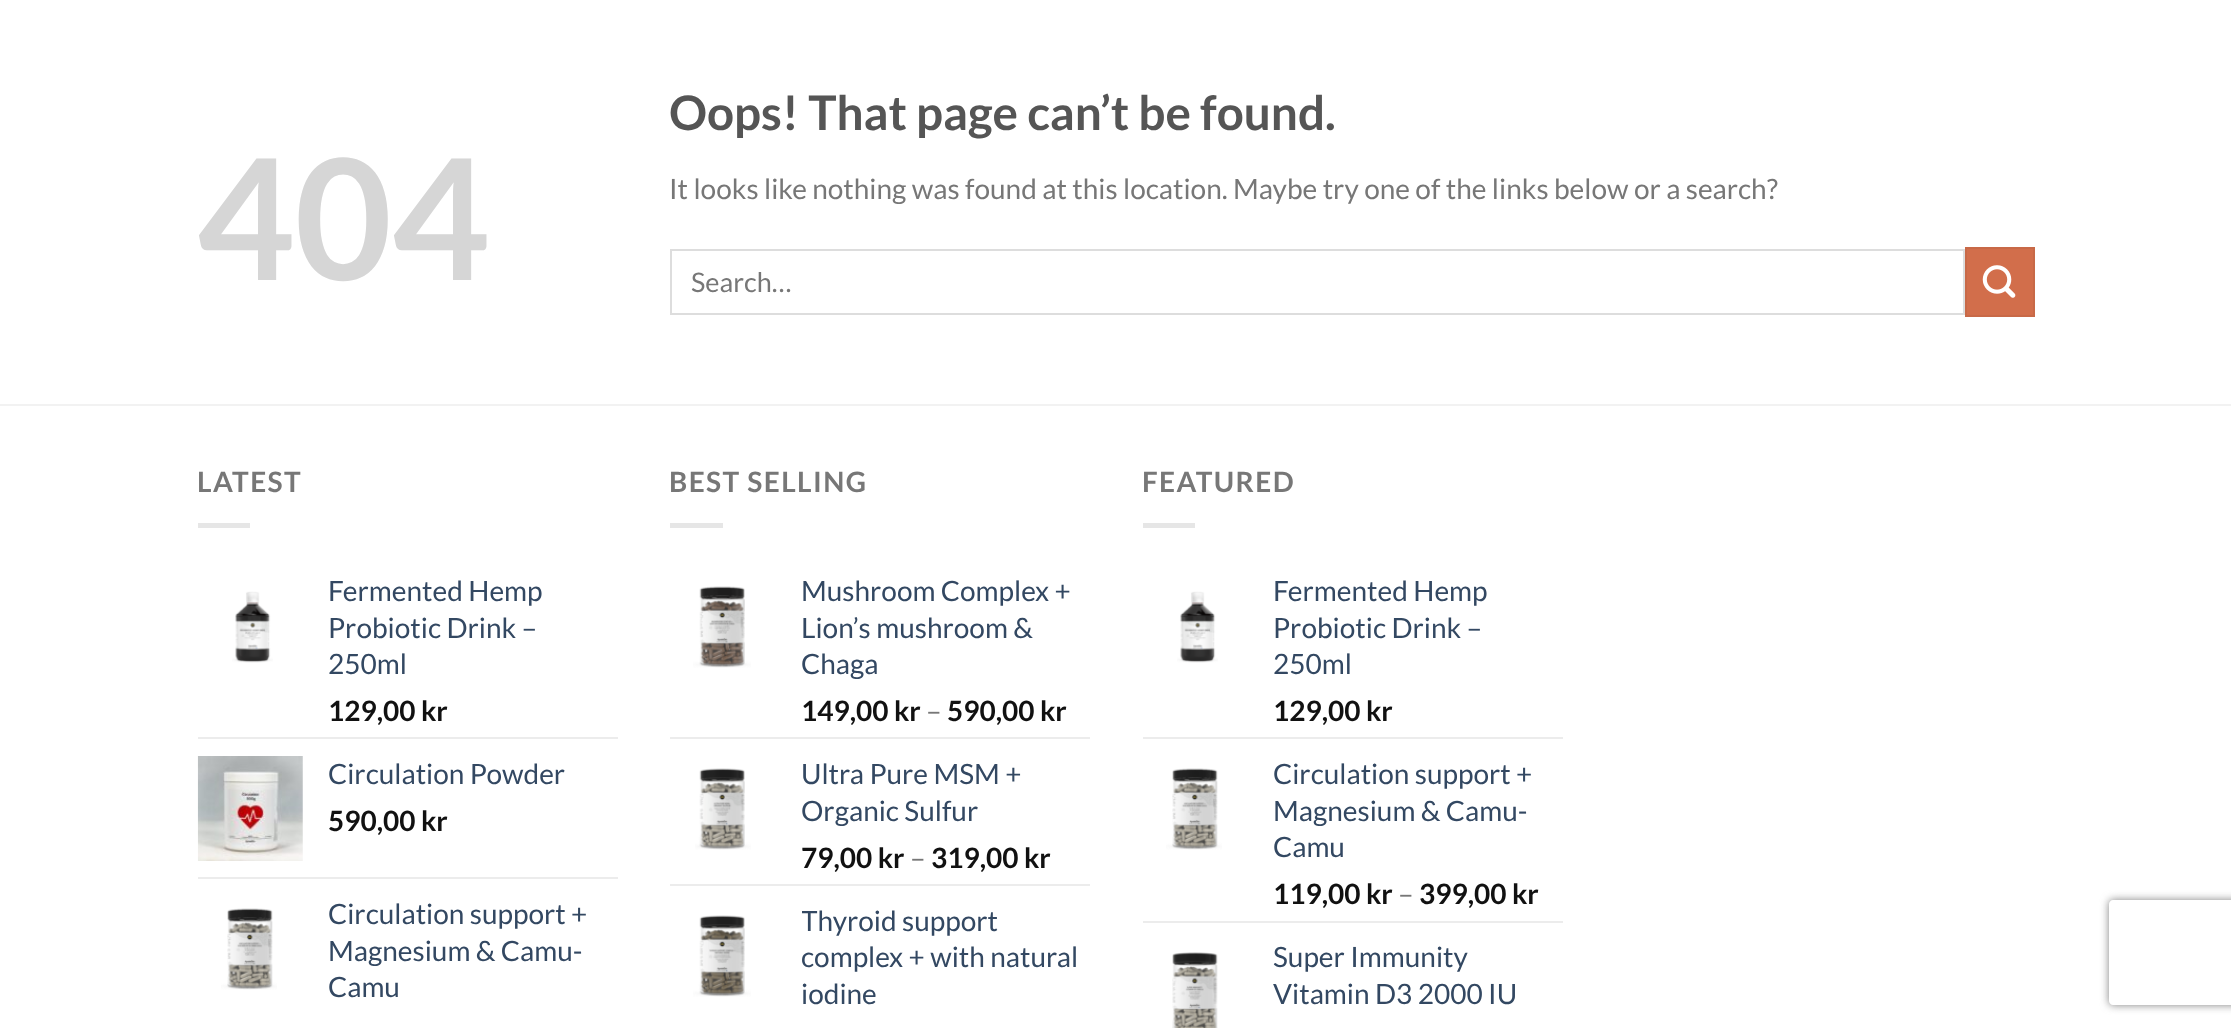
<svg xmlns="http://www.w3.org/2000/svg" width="2231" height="1028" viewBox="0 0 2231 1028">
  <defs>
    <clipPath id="clip1"><path d="M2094 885H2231V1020H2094ZM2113 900H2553C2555 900 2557 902 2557 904V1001C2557 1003 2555 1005 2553 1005H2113C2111 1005 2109 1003 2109 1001V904C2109 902 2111 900 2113 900Z" clip-rule="evenodd"/></clipPath>
    <clipPath id="clip2"><path d="M802 903h288v109H802z"/></clipPath>
  </defs>
  <rect width="100%" height="100%" fill="#fff"/>
  <path d="M671 250h1293v64H671z" fill="none" stroke="#ddd" stroke-width="2"/>
  <path d="M1966 248h68v68H1966z" fill="#d26e4b" stroke="#c86947" stroke-width="2"/>
  <image x="1982" y="265" width="34" height="33" href="img/1.png"/>
  <path d="M0 404h2231v2H0z" fill="#f2f2f2"/>
  <path d="M198 523h52v5H198z" fill="#e6e6e6"/>
  <image x="232" y="591" width="41" height="72" href="img/2.png"/>
  <path d="M198 737h420v2H198z" fill="#ececec"/>
  <image x="197" y="756" width="106" height="105" href="img/3.png"/>
  <path d="M198 877h420v2H198z" fill="#ececec"/>
  <image x="221" y="908" width="56" height="82" href="img/4.png"/>
  <path d="M670 523h53v5H670z" fill="#e6e6e6"/>
  <image x="693" y="586" width="58" height="82" href="img/5.png"/>
  <path d="M670 737h420v2H670z" fill="#ececec"/>
  <image x="695" y="768" width="56" height="82" href="img/6.png"/>
  <path d="M670 884h420v2H670z" fill="#ececec"/>
  <image x="693" y="915" width="58" height="82" href="img/7.png"/>
  <path d="M1143 523h52v5H1143z" fill="#e6e6e6"/>
  <image x="1177" y="591" width="41" height="72" href="img/2.png"/>
  <path d="M1143 737h420v2H1143z" fill="#ececec"/>
  <image x="1166" y="768" width="56" height="82" href="img/8.png"/>
  <path d="M1143 921h420v2H1143z" fill="#ececec"/>
  <image x="1172" y="952" width="46" height="76" href="img/9.png"/>
  <g clip-path="url(#clip1)">
    <rect x="2109" y="900" width="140" height="105" rx="4" fill="#808080" filter="blur(4.5px)"/>
  </g>
  <text x="197" y="280" font-family="Lato" font-size="168" font-weight="bold" fill="#d6d6d6">404</text>
  <text x="669" y="130" font-family="Lato" font-size="47.6" font-weight="bold" fill="#555">Oops! That page can’t be found.</text>
  <text x="669" y="199" font-family="Lato" font-size="28" fill="#777">It looks like nothing was found at this location. Maybe try one of the links below or a search?</text>
  <text x="691" y="292" font-family="Lato" font-size="27" fill="#777">Search…</text>
  <text x="197" y="492" font-family="Lato" font-size="28" font-weight="bold" letter-spacing="1.4" fill="#777">LATEST</text>
  <g font-family="Lato" font-size="28" fill="#334862">
    <text x="328" y="601">Fermented Hemp</text>
    <text x="328" y="638">Probiotic Drink –</text>
    <text x="328" y="674">250ml</text>
  </g>
  <text x="328" y="721" font-family="Lato" font-size="28" font-weight="bold" fill="#111">129,00 kr</text>
  <text x="328" y="784" font-family="Lato" font-size="28" fill="#334862">Circulation Powder</text>
  <text x="328" y="831" font-family="Lato" font-size="28" font-weight="bold" fill="#111">590,00 kr</text>
  <g font-family="Lato" font-size="28" fill="#334862">
    <text x="328" y="924">Circulation support +</text>
    <text x="328" y="961">Magnesium &amp; Camu-</text>
    <text x="328" y="997">Camu</text>
  </g>
  <text x="669" y="492" font-family="Lato" font-size="28" font-weight="bold" letter-spacing="1.4" fill="#777">BEST SELLING</text>
  <g font-family="Lato" font-size="28" fill="#334862">
    <text x="801" y="601">Mushroom Complex +</text>
    <text x="801" y="638">Lion’s mushroom &amp;</text>
    <text x="801" y="674">Chaga</text>
  </g>
  <text x="801" y="721" font-family="Lato" font-size="28" font-weight="bold" fill="#111">149,00 kr</text>
  <text x="926" y="721" font-family="Lato" font-size="28" fill="#777">–</text>
  <text x="947" y="721" font-family="Lato" font-size="28" font-weight="bold" fill="#111">590,00 kr</text>
  <g font-family="Lato" font-size="28" fill="#334862">
    <text x="801" y="784">Ultra Pure MSM +</text>
    <text x="801" y="821">Organic Sulfur</text>
  </g>
  <text x="801" y="868" font-family="Lato" font-size="28" font-weight="bold" fill="#111">79,00 kr</text>
  <text x="910" y="868" font-family="Lato" font-size="28" fill="#777">–</text>
  <text x="931" y="868" font-family="Lato" font-size="28" font-weight="bold" fill="#111">319,00 kr</text>
  <g clip-path="url(#clip2)">
    <g font-family="Lato" font-size="28" fill="#334862">
      <text x="801" y="931">Thyroid support</text>
      <text x="801" y="967">complex + with natural</text>
    </g>
  </g>
  <text x="801" y="1004" font-family="Lato" font-size="28" fill="#334862">iodine</text>
  <text x="1142" y="492" font-family="Lato" font-size="28" font-weight="bold" letter-spacing="1.4" fill="#777">FEATURED</text>
  <g font-family="Lato" font-size="28" fill="#334862">
    <text x="1273" y="601">Fermented Hemp</text>
    <text x="1273" y="638">Probiotic Drink –</text>
    <text x="1273" y="674">250ml</text>
  </g>
  <text x="1273" y="721" font-family="Lato" font-size="28" font-weight="bold" fill="#111">129,00 kr</text>
  <g font-family="Lato" font-size="28" fill="#334862">
    <text x="1273" y="784">Circulation support +</text>
    <text x="1273" y="821">Magnesium &amp; Camu-</text>
    <text x="1273" y="857">Camu</text>
  </g>
  <text x="1273" y="904" font-family="Lato" font-size="28" font-weight="bold" fill="#111">119,00 kr</text>
  <text x="1398" y="904" font-family="Lato" font-size="28" fill="#777">–</text>
  <text x="1419" y="904" font-family="Lato" font-size="28" font-weight="bold" fill="#111">399,00 kr</text>
  <g font-family="Lato" font-size="28" fill="#334862">
    <text x="1273" y="967">Super Immunity</text>
    <text x="1273" y="1004">Vitamin D3 2000 IU</text>
  </g>
</svg>
